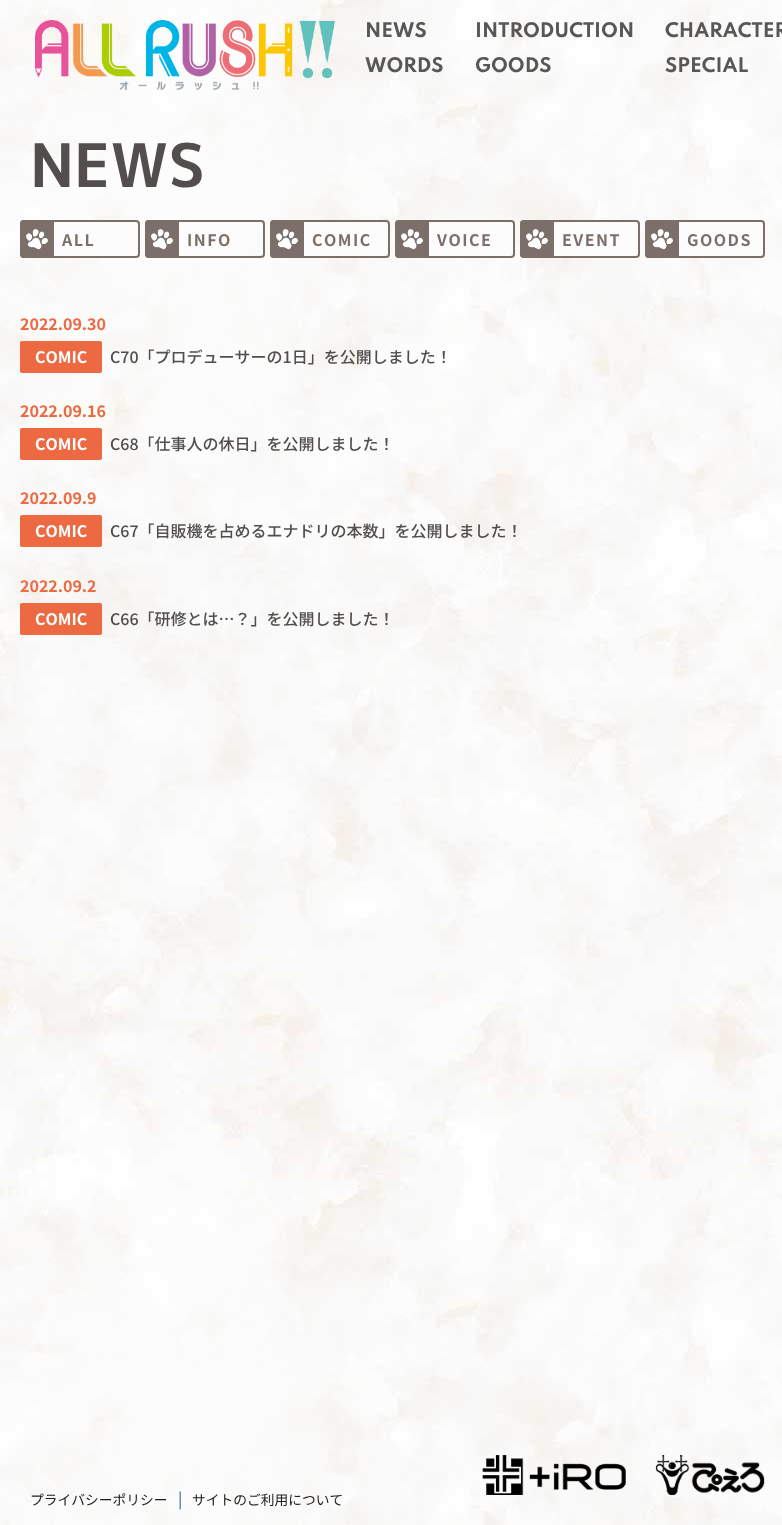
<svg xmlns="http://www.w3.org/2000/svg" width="782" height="1525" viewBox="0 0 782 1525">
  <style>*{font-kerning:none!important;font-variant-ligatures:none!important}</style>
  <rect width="100%" height="100%" fill="#fff"/>
  <image x="0" y="0" width="782" height="1525" href="img/1.png"/>
  <image x="35" y="20" width="300" height="70" href="img/2.png"/>
  <image x="0" y="231" width="782" height="1293" href="img/3.png"/>
  <rect x="20" y="220" width="120" height="38" rx="4" fill="#fcfcfc"/>
  <image x="20" y="220" width="34" height="38" href="img/4.png"/>
  <rect x="21" y="221" width="118" height="36" rx="3" fill="none" stroke="#7b6f68" stroke-width="2"/>
  <image x="145" y="220" width="34" height="38" href="img/5.png"/>
  <rect x="146" y="221" width="118" height="36" rx="3" fill="none" stroke="#7b6f68" stroke-width="2"/>
  <rect x="270" y="220" width="120" height="38" rx="4" fill="#fcfcfc"/>
  <image x="270" y="220" width="34" height="38" href="img/6.png"/>
  <rect x="271" y="221" width="118" height="36" rx="3" fill="none" stroke="#7b6f68" stroke-width="2"/>
  <rect x="395" y="220" width="120" height="38" rx="4" fill="#fcfcfc"/>
  <image x="395" y="220" width="34" height="38" href="img/7.png"/>
  <rect x="396" y="221" width="118" height="36" rx="3" fill="none" stroke="#7b6f68" stroke-width="2"/>
  <rect x="520" y="220" width="120" height="38" rx="4" fill="#fcfcfc"/>
  <image x="520" y="220" width="34" height="38" href="img/8.png"/>
  <rect x="521" y="221" width="118" height="36" rx="3" fill="none" stroke="#7b6f68" stroke-width="2"/>
  <rect x="645" y="220" width="120" height="38" rx="4" fill="#fcfcfc"/>
  <image x="645" y="220" width="34" height="38" href="img/9.png"/>
  <rect x="646" y="221" width="118" height="36" rx="3" fill="none" stroke="#7b6f68" stroke-width="2"/>
  <rect x="20" y="341" width="82" height="32" rx="2" fill="#ec6941"/>
  <rect x="20" y="428" width="82" height="32" rx="2" fill="#ec6941"/>
  <rect x="20" y="515" width="82" height="32" rx="2" fill="#ec6941"/>
  <rect x="20" y="603" width="82" height="32" rx="2" fill="#ec6941"/>
  <image x="482" y="1455" width="144" height="40" href="img/10.png"/>
  <image x="655" y="1455" width="110" height="40" href="img/11.png"/>
  <g font-family="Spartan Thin" font-size="18" font-weight="bold" fill="#575757">
    <text x="365" y="37">NEWS</text>
    <text x="475" y="37">INTRODUCTION</text>
    <text x="665" y="37">CHARACTER</text>
    <text x="365" y="72">WORDS</text>
    <text x="475" y="72">GOODS</text>
    <text x="665" y="72">SPECIAL</text>
  </g>
  <text x="30" y="187" font-family="'M PLUS 1p'" font-size="60" font-weight="bold" fill="#524e4e">NEWS</text>
  <g font-family="Noto Sans JP" font-size="16" font-weight="bold" letter-spacing="1.5" fill="#7b6f68">
    <text x="62" y="246">ALL</text>
    <text x="187" y="246">INFO</text>
    <text x="312" y="246">COMIC</text>
    <text x="437" y="246">VOICE</text>
    <text x="562" y="246">EVENT</text>
    <text x="687" y="246">GOODS</text>
  </g>
  <text x="20" y="330" font-family="Noto Sans JP" font-size="16" font-weight="bold" fill="#ec6941">2022.09.30</text>
  <text x="35" y="363" font-family="Noto Sans JP" font-size="16" font-weight="bold" fill="#fff">COMIC</text>
  <text x="110" y="363" font-family="Noto Sans JP" font-size="16" font-weight="500" fill="#524e4e">C70「プロデューサーの1日」を公開しました！</text>
  <text x="20" y="417" font-family="Noto Sans JP" font-size="16" font-weight="bold" fill="#ec6941">2022.09.16</text>
  <text x="35" y="450" font-family="Noto Sans JP" font-size="16" font-weight="bold" fill="#fff">COMIC</text>
  <text x="110" y="450" font-family="Noto Sans JP" font-size="16" font-weight="500" fill="#524e4e">C68「仕事人の休日」を公開しました！</text>
  <text x="20" y="504" font-family="Noto Sans JP" font-size="16" font-weight="bold" fill="#ec6941">2022.09.9</text>
  <text x="35" y="537" font-family="Noto Sans JP" font-size="16" font-weight="bold" fill="#fff">COMIC</text>
  <text x="110" y="537" font-family="Noto Sans JP" font-size="16" font-weight="500" fill="#524e4e">C67「自販機を占めるエナドリの本数」を公開しました！</text>
  <text x="20" y="592" font-family="Noto Sans JP" font-size="16" font-weight="bold" fill="#ec6941">2022.09.2</text>
  <text x="35" y="625" font-family="Noto Sans JP" font-size="16" font-weight="bold" fill="#fff">COMIC</text>
  <text x="110" y="625" font-family="Noto Sans JP" font-size="16" font-weight="500" fill="#524e4e">C66「研修とは…？」を公開しました！</text>
  <text x="30" y="1505" font-family="Noto Sans JP" font-size="13.75" fill="#1b1b1b">プライバシーポリシー</text>
  <text x="178" y="1505" font-family="Noto Sans JP" font-size="16" fill="#32607a">|</text>
  <text x="192" y="1505" font-family="Noto Sans JP" font-size="13.75" fill="#1b1b1b">サイトのご利用について</text>
</svg>
